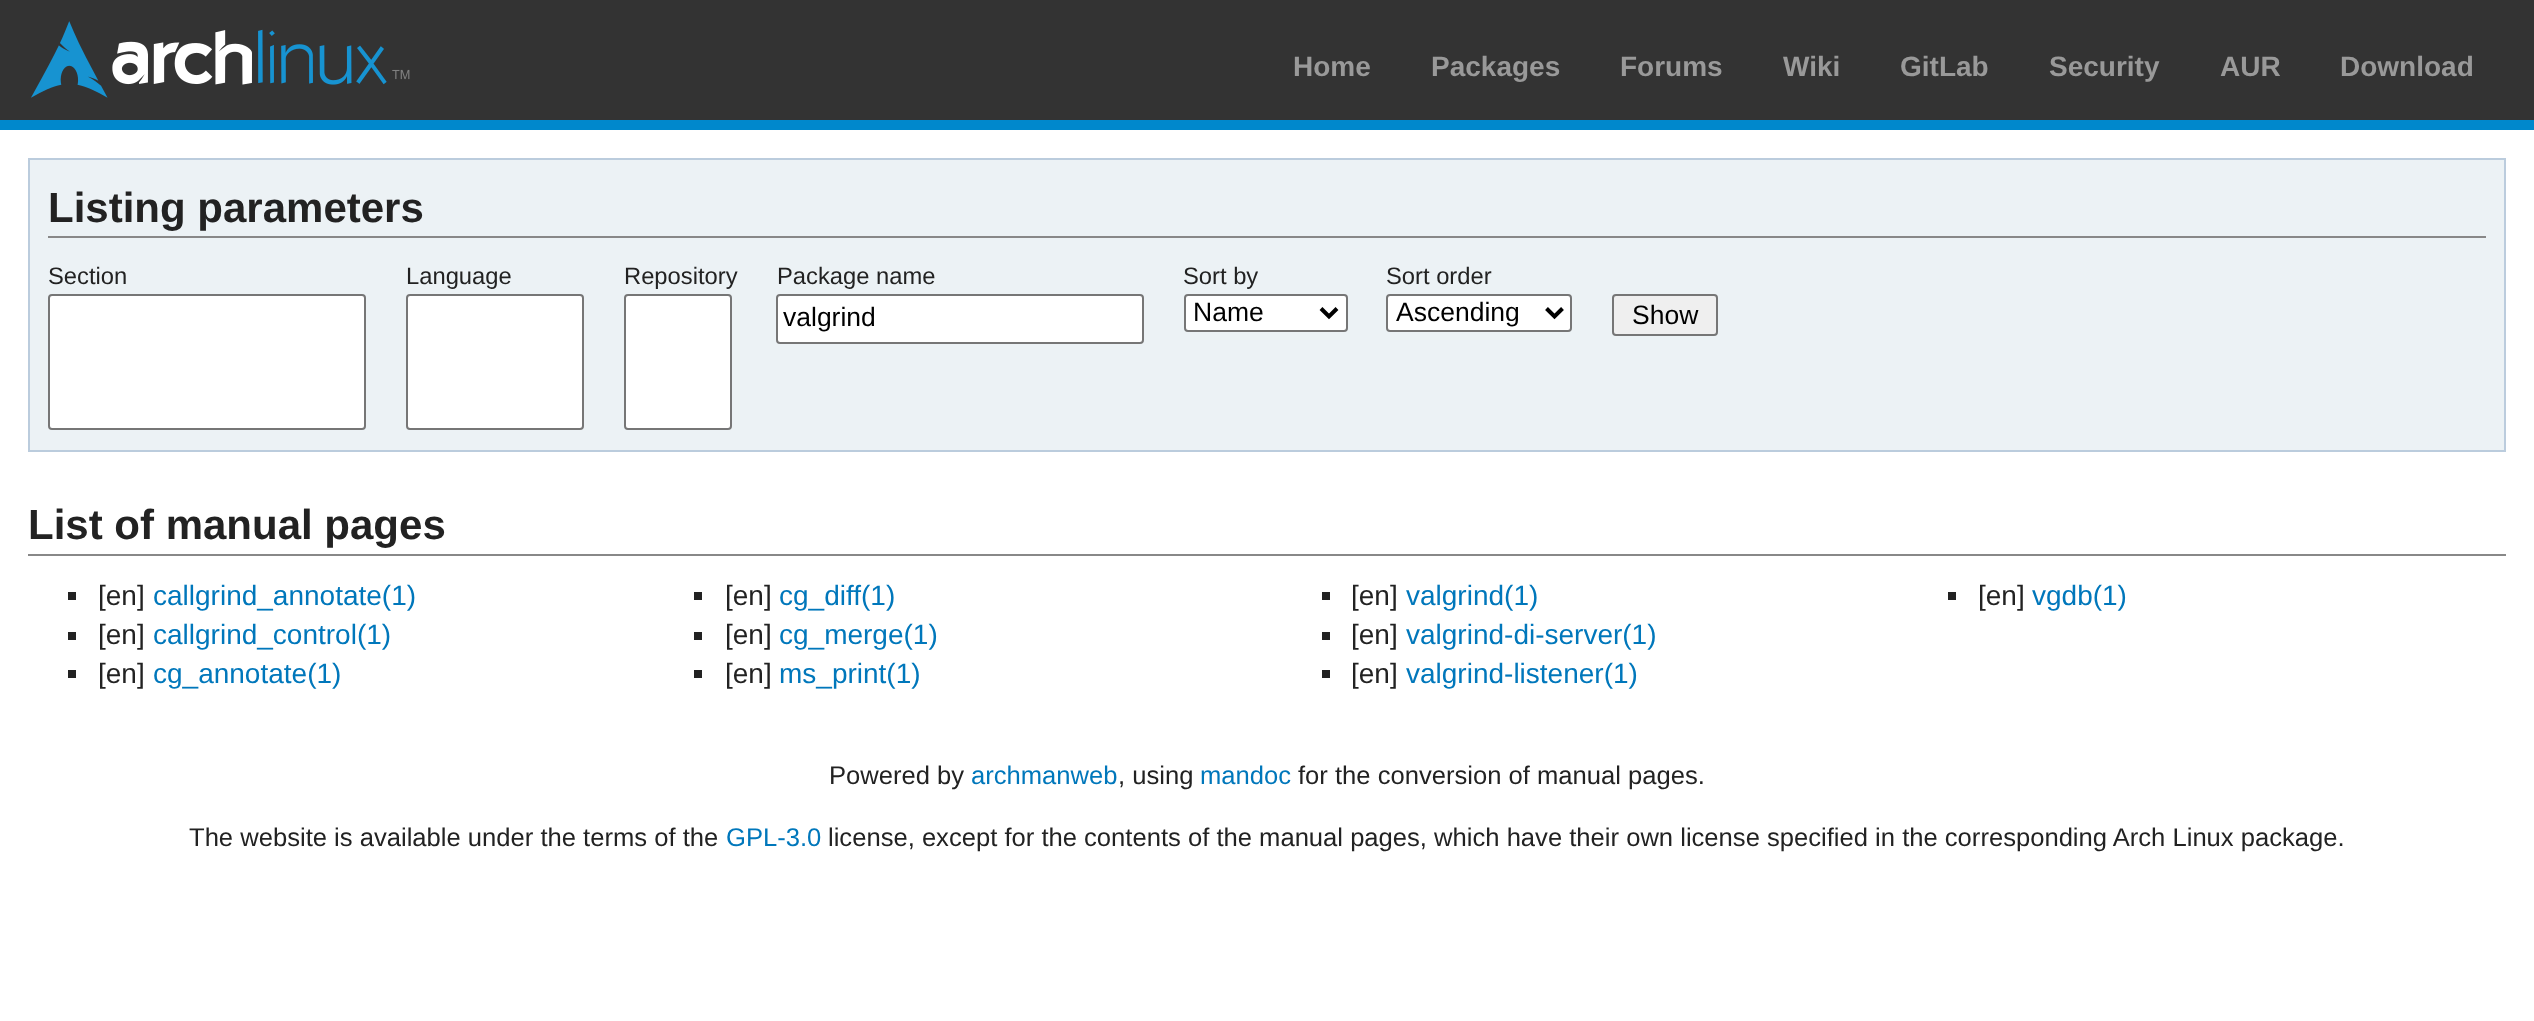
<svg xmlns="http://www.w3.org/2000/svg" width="2534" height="1021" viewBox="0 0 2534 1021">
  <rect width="100%" height="100%" fill="#fff"/>
  <path d="M0 0h2534v120H0z" fill="#333"/>
  <path d="M0 120h2534v10H0z" fill="#08c"/>
  <image x="31" y="21" width="379" height="77" href="img/1.png"/>
  <path d="M29 159h2476v292H29z" fill="#ecf2f5" stroke="#bcd" stroke-width="2"/>
  <path d="M48 236h2438v2H48z" fill="#888"/>
  <rect x="49" y="295" width="316" height="134" rx="3" fill="#fff" stroke="#767676" stroke-width="2"/>
  <rect x="407" y="295" width="176" height="134" rx="3" fill="#fff" stroke="#767676" stroke-width="2"/>
  <rect x="625" y="295" width="106" height="134" rx="3" fill="#fff" stroke="#767676" stroke-width="2"/>
  <rect x="777" y="295" width="366" height="48" rx="3" fill="#fff" stroke="#767676" stroke-width="2"/>
  <rect x="1185" y="295" width="162" height="36" rx="3" fill="#fff" stroke="#767676" stroke-width="2"/>
  <path d="M1321 308.5L1329 316.5L1337 308.5" fill="none" stroke="#000" stroke-width="4"/>
  <rect x="1387" y="295" width="184" height="36" rx="3" fill="#fff" stroke="#767676" stroke-width="2"/>
  <path d="M1546.5 308.5L1554.5 316.5L1562.5 308.5" fill="none" stroke="#000" stroke-width="4"/>
  <rect x="1613" y="295" width="104" height="40" rx="3" fill="#efefef" stroke="#767676" stroke-width="2"/>
  <path d="M28 554h2478v2H28z" fill="#888"/>
  <path d="M68 592h8v8H68z" fill="#222"/>
  <path d="M694 592h8v8H694z" fill="#222"/>
  <path d="M1322 592h8v8H1322z" fill="#222"/>
  <path d="M1948 592h8v8H1948z" fill="#222"/>
  <path d="M68 632h8v8H68z" fill="#222"/>
  <path d="M694 632h8v8H694z" fill="#222"/>
  <path d="M1322 632h8v8H1322z" fill="#222"/>
  <path d="M68 670h8v8H68z" fill="#222"/>
  <path d="M694 670h8v8H694z" fill="#222"/>
  <path d="M1322 670h8v8H1322z" fill="#222"/>
  <g font-family="Liberation Sans" font-size="28" font-weight="bold" fill="#999">
    <text x="1293" y="76">Home</text>
    <text x="1431" y="76">Packages</text>
    <text x="1620" y="76">Forums</text>
    <text x="1783" y="76">Wiki</text>
    <text x="1900" y="76">GitLab</text>
    <text x="2049" y="76">Security</text>
    <text x="2220" y="76">AUR</text>
    <text x="2340" y="76">Download</text>
  </g>
  <text x="48" y="222" font-family="Liberation Sans" font-size="42" font-weight="bold" fill="#222">Listing parameters</text>
  <g font-family="Liberation Sans" font-size="23.75" fill="#222">
    <text x="48" y="284">Section</text>
    <text x="406" y="284">Language</text>
    <text x="624" y="284">Repository</text>
    <text x="777" y="284">Package name</text>
  </g>
  <text x="783" y="326" font-family="Liberation Sans" font-size="26.5" fill="#000">valgrind</text>
  <text x="1183" y="284" font-family="Liberation Sans" font-size="23.75" fill="#222">Sort by</text>
  <text x="1193" y="321" font-family="Liberation Sans" font-size="26.5" fill="#000">Name</text>
  <text x="1386" y="284" font-family="Liberation Sans" font-size="23.75" fill="#222">Sort order</text>
  <g font-family="Liberation Sans" font-size="26.5" fill="#000">
    <text x="1396" y="321">Ascending</text>
    <text x="1632" y="324">Show</text>
  </g>
  <text x="28" y="539" font-family="Liberation Sans" font-size="42" font-weight="bold" fill="#222">List of manual pages</text>
  <text x="98" y="605" font-family="Liberation Sans" font-size="28" fill="#222">[en]</text>
  <text x="153" y="605" font-family="Liberation Sans" font-size="28" fill="#07b">callgrind_annotate(1)</text>
  <text x="725" y="605" font-family="Liberation Sans" font-size="28" fill="#222">[en]</text>
  <text x="779" y="605" font-family="Liberation Sans" font-size="28" fill="#07b">cg_diff(1)</text>
  <text x="1351" y="605" font-family="Liberation Sans" font-size="28" fill="#222">[en]</text>
  <text x="1406" y="605" font-family="Liberation Sans" font-size="28" fill="#07b">valgrind(1)</text>
  <text x="1978" y="605" font-family="Liberation Sans" font-size="28" fill="#222">[en]</text>
  <text x="2032" y="605" font-family="Liberation Sans" font-size="28" fill="#07b">vgdb(1)</text>
  <text x="98" y="644" font-family="Liberation Sans" font-size="28" fill="#222">[en]</text>
  <text x="153" y="644" font-family="Liberation Sans" font-size="28" fill="#07b">callgrind_control(1)</text>
  <text x="725" y="644" font-family="Liberation Sans" font-size="28" fill="#222">[en]</text>
  <text x="779" y="644" font-family="Liberation Sans" font-size="28" fill="#07b">cg_merge(1)</text>
  <text x="1351" y="644" font-family="Liberation Sans" font-size="28" fill="#222">[en]</text>
  <text x="1406" y="644" font-family="Liberation Sans" font-size="28" fill="#07b">valgrind-di-server(1)</text>
  <text x="98" y="683" font-family="Liberation Sans" font-size="28" fill="#222">[en]</text>
  <text x="153" y="683" font-family="Liberation Sans" font-size="28" fill="#07b">cg_annotate(1)</text>
  <text x="725" y="683" font-family="Liberation Sans" font-size="28" fill="#222">[en]</text>
  <text x="779" y="683" font-family="Liberation Sans" font-size="28" fill="#07b">ms_print(1)</text>
  <text x="1351" y="683" font-family="Liberation Sans" font-size="28" fill="#222">[en]</text>
  <text x="1406" y="683" font-family="Liberation Sans" font-size="28" fill="#07b">valgrind-listener(1)</text>
  <text x="829" y="784" font-family="Liberation Sans" font-size="25.6" fill="#222">Powered by</text>
  <text x="971" y="784" font-family="Liberation Sans" font-size="25.6" fill="#07b">archmanweb</text>
  <text x="1118" y="784" font-family="Liberation Sans" font-size="25.6" fill="#222">, using</text>
  <text x="1200" y="784" font-family="Liberation Sans" font-size="25.6" fill="#07b">mandoc</text>
  <g font-family="Liberation Sans" font-size="25.6" fill="#222">
    <text x="1298" y="784">for the conversion of manual pages.</text>
    <text x="189" y="846">The website is available under the terms of the</text>
  </g>
  <text x="726" y="846" font-family="Liberation Sans" font-size="25.6" fill="#07b">GPL-3.0</text>
  <text x="828" y="846" font-family="Liberation Sans" font-size="25.6" fill="#222">license, except for the contents of the manual pages, which have their own license specified in the corresponding Arch Linux package.</text>
</svg>
